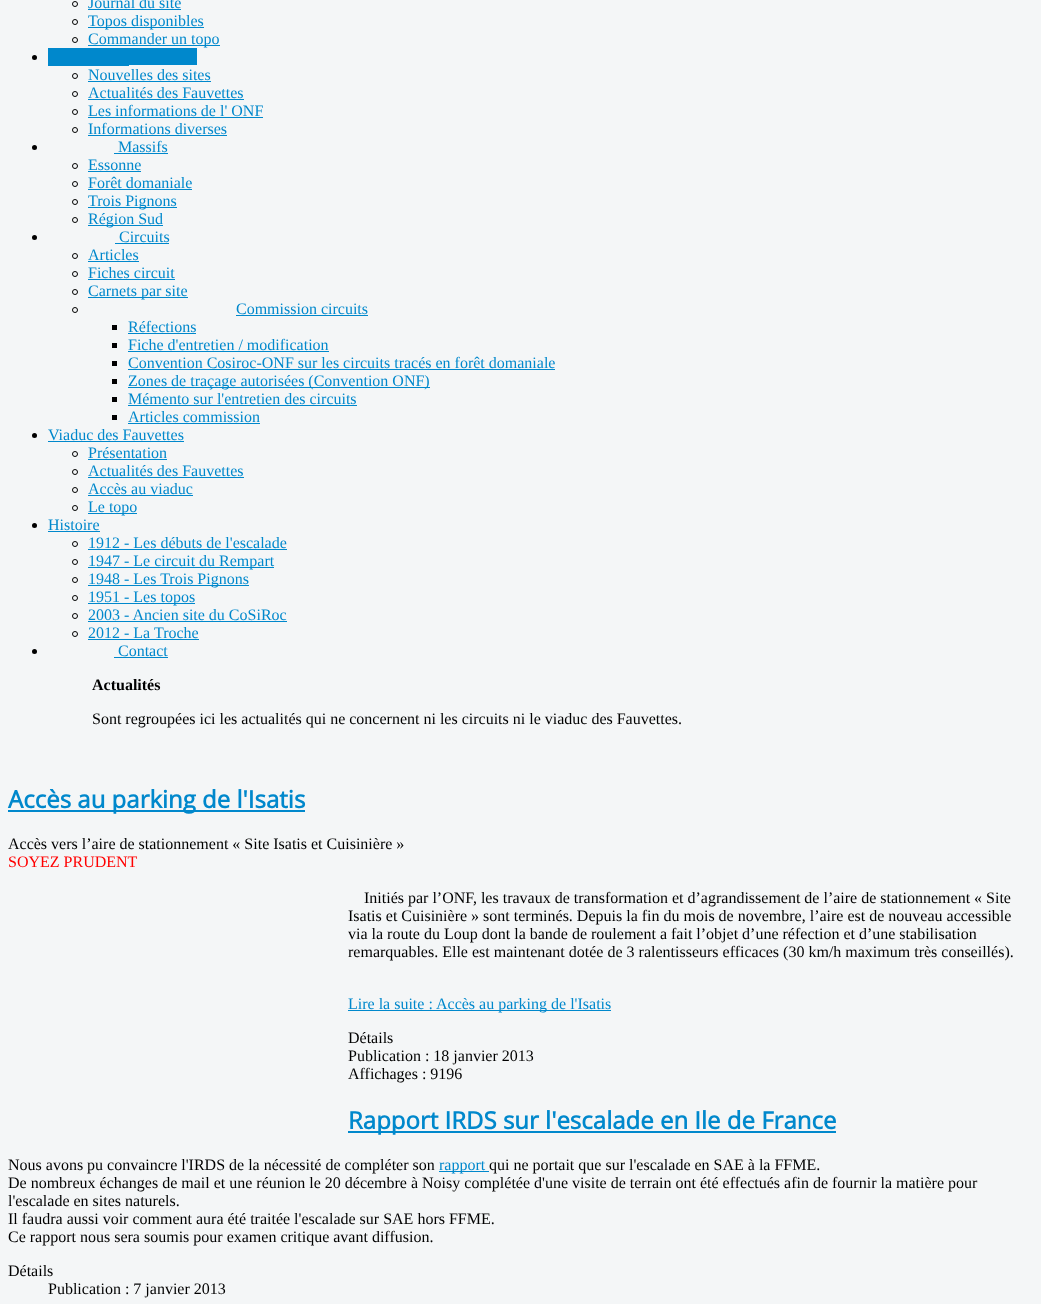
<svg xmlns="http://www.w3.org/2000/svg" width="1041" height="1304" viewBox="0 0 1041 1304">
  <rect width="100%" height="100%" fill="#f4f6f7"/>
  <circle cx="75" cy="4" r="2.5" fill="none" stroke="#000"/>
  <path d="M88 9h93v1H88z" fill="#08c"/>
  <circle cx="75" cy="22" r="2.5" fill="none" stroke="#000"/>
  <path d="M88 27h116v1H88z" fill="#08c"/>
  <circle cx="75" cy="40" r="2.5" fill="none" stroke="#000"/>
  <path d="M88 45h132v1H88z" fill="#08c"/>
  <circle cx="34.5" cy="57.5" r="2.5" fill="#000"/>
  <path d="M48 48h81v18H48z" fill="#08c"/>
  <path d="M129 48h68v17H129z" fill="#08c"/>
  <circle cx="75" cy="76" r="2.5" fill="none" stroke="#000"/>
  <path d="M88 81h123v1H88z" fill="#08c"/>
  <circle cx="75" cy="94" r="2.5" fill="none" stroke="#000"/>
  <path d="M88 99h156v1H88z" fill="#08c"/>
  <circle cx="75" cy="112" r="2.5" fill="none" stroke="#000"/>
  <path d="M88 117h175v1H88z" fill="#08c"/>
  <circle cx="75" cy="130" r="2.5" fill="none" stroke="#000"/>
  <path d="M88 135h139v1H88z" fill="#08c"/>
  <circle cx="34.5" cy="147.5" r="2.5" fill="#000"/>
  <path d="M114 153h54v1H114z" fill="#08c"/>
  <circle cx="75" cy="166" r="2.5" fill="none" stroke="#000"/>
  <path d="M88 171h53v1H88z" fill="#08c"/>
  <circle cx="75" cy="184" r="2.5" fill="none" stroke="#000"/>
  <path d="M88 189h104v1H88z" fill="#08c"/>
  <circle cx="75" cy="202" r="2.5" fill="none" stroke="#000"/>
  <path d="M88 207h89v1H88z" fill="#08c"/>
  <circle cx="75" cy="220" r="2.5" fill="none" stroke="#000"/>
  <path d="M88 225h75v1H88z" fill="#08c"/>
  <circle cx="34.5" cy="237.5" r="2.5" fill="#000"/>
  <path d="M115 243h54v1H115z" fill="#08c"/>
  <circle cx="75" cy="256" r="2.5" fill="none" stroke="#000"/>
  <path d="M88 261h51v1H88z" fill="#08c"/>
  <circle cx="75" cy="274" r="2.5" fill="none" stroke="#000"/>
  <path d="M88 279h87v1H88z" fill="#08c"/>
  <circle cx="75" cy="292" r="2.5" fill="none" stroke="#000"/>
  <path d="M88 297h100v1H88z" fill="#08c"/>
  <circle cx="75" cy="310" r="2.5" fill="none" stroke="#000"/>
  <path d="M236 315h132v1H236z" fill="#08c"/>
  <path d="M112 325h5v5H112z" fill="#000"/>
  <path d="M128 333h68v1H128z" fill="#08c"/>
  <path d="M112 343h5v5H112z" fill="#000"/>
  <path d="M128 351h201v1H128z" fill="#08c"/>
  <path d="M112 361h5v5H112z" fill="#000"/>
  <path d="M128 369h427v1H128z" fill="#08c"/>
  <path d="M112 379h5v5H112z" fill="#000"/>
  <path d="M128 387h302v1H128z" fill="#08c"/>
  <path d="M112 397h5v5H112z" fill="#000"/>
  <path d="M128 405h229v1H128z" fill="#08c"/>
  <path d="M112 415h5v5H112z" fill="#000"/>
  <path d="M128 423h132v1H128z" fill="#08c"/>
  <circle cx="34.5" cy="435.5" r="2.5" fill="#000"/>
  <path d="M48 441h136v1H48z" fill="#08c"/>
  <circle cx="75" cy="454" r="2.5" fill="none" stroke="#000"/>
  <path d="M88 459h79v1H88z" fill="#08c"/>
  <circle cx="75" cy="472" r="2.5" fill="none" stroke="#000"/>
  <path d="M88 477h156v1H88z" fill="#08c"/>
  <circle cx="75" cy="490" r="2.5" fill="none" stroke="#000"/>
  <path d="M88 495h105v1H88z" fill="#08c"/>
  <circle cx="75" cy="508" r="2.5" fill="none" stroke="#000"/>
  <path d="M88 513h49v1H88z" fill="#08c"/>
  <circle cx="34.5" cy="525.5" r="2.5" fill="#000"/>
  <path d="M48 531h52v1H48z" fill="#08c"/>
  <circle cx="75" cy="544" r="2.5" fill="none" stroke="#000"/>
  <path d="M88 549h199v1H88z" fill="#08c"/>
  <circle cx="75" cy="562" r="2.5" fill="none" stroke="#000"/>
  <path d="M88 567h186v1H88z" fill="#08c"/>
  <circle cx="75" cy="580" r="2.5" fill="none" stroke="#000"/>
  <path d="M88 585h161v1H88z" fill="#08c"/>
  <circle cx="75" cy="598" r="2.5" fill="none" stroke="#000"/>
  <path d="M88 603h107v1H88z" fill="#08c"/>
  <circle cx="75" cy="616" r="2.5" fill="none" stroke="#000"/>
  <path d="M88 621h199v1H88z" fill="#08c"/>
  <circle cx="75" cy="634" r="2.5" fill="none" stroke="#000"/>
  <path d="M88 639h111v1H88z" fill="#08c"/>
  <circle cx="34.5" cy="651.5" r="2.5" fill="#000"/>
  <path d="M114 657h54v1H114z" fill="#08c"/>
  <path d="M8 810h297v2H8z" fill="#08c"/>
  <path d="M348 1010h263v1H348z" fill="#08c"/>
  <path d="M348 1131h488v2H348z" fill="#08c"/>
  <path d="M439 1171h50v1H439z" fill="#08c"/>
  <g font-family="Liberation Serif" font-size="16" fill="#08c">
    <text x="88" y="8">Journal du site</text>
    <text x="88" y="26">Topos disponibles</text>
    <text x="88" y="44">Commander un topo</text>
    <text x="88" y="80">Nouvelles des sites</text>
    <text x="88" y="98">Actualités des Fauvettes</text>
    <text x="88" y="116">Les informations de l' ONF</text>
    <text x="88" y="134">Informations diverses</text>
    <text x="118" y="152">Massifs</text>
    <text x="88" y="170">Essonne</text>
    <text x="88" y="188">Forêt domaniale</text>
    <text x="88" y="206">Trois Pignons</text>
    <text x="88" y="224">Région Sud</text>
    <text x="119" y="242">Circuits</text>
    <text x="88" y="260">Articles</text>
    <text x="88" y="278">Fiches circuit</text>
    <text x="88" y="296">Carnets par site</text>
    <text x="236" y="314">Commission circuits</text>
    <text x="128" y="332">Réfections</text>
    <text x="128" y="350">Fiche d'entretien / modification</text>
    <text x="128" y="368">Convention Cosiroc-ONF sur les circuits tracés en forêt domaniale</text>
    <text x="128" y="386">Zones de traçage autorisées (Convention ONF)</text>
    <text x="128" y="404">Mémento sur l'entretien des circuits</text>
    <text x="128" y="422">Articles commission</text>
    <text x="48" y="440">Viaduc des Fauvettes</text>
    <text x="88" y="458">Présentation</text>
    <text x="88" y="476">Actualités des Fauvettes</text>
    <text x="88" y="494">Accès au viaduc</text>
    <text x="88" y="512">Le topo</text>
    <text x="48" y="530">Histoire</text>
    <text x="88" y="548">1912 - Les débuts de l'escalade</text>
    <text x="88" y="566">1947 - Le circuit du Rempart</text>
    <text x="88" y="584">1948 - Les Trois Pignons</text>
    <text x="88" y="602">1951 - Les topos</text>
    <text x="88" y="620">2003 - Ancien site du CoSiRoc</text>
    <text x="88" y="638">2012 - La Troche</text>
    <text x="118" y="656">Contact</text>
  </g>
  <text x="92" y="690" font-family="Liberation Serif" font-size="16" font-weight="bold" fill="#000">Actualités</text>
  <text x="92" y="724" font-family="Liberation Serif" font-size="16" fill="#000">Sont regroupées ici les actualités qui ne concernent ni les circuits ni le viaduc des Fauvettes.</text>
  <text x="8" y="808" font-family="Open Sans" font-size="24" font-weight="bold" fill="#08c">Accès au parking de l'Isatis</text>
  <text x="8" y="849" font-family="Liberation Serif" font-size="16" fill="#000">Accès vers l’aire de stationnement « Site Isatis et Cuisinière »</text>
  <text x="8" y="867" font-family="Liberation Serif" font-size="16" fill="#f00">SOYEZ PRUDENT</text>
  <g font-family="Liberation Serif" font-size="16" fill="#000">
    <text x="364" y="903">Initiés par l’ONF, les travaux de transformation et d’agrandissement de l’aire de stationnement « Site</text>
    <text x="348" y="921">Isatis et Cuisinière » sont terminés. Depuis la fin du mois de novembre, l’aire est de nouveau accessible</text>
    <text x="348" y="939">via la route du Loup dont la bande de roulement a fait l’objet d’une réfection et d’une stabilisation</text>
    <text x="348" y="957">remarquables. Elle est maintenant dotée de 3 ralentisseurs efficaces (30 km/h maximum très conseillés).</text>
  </g>
  <text x="348" y="1009" font-family="Liberation Serif" font-size="16" fill="#08c">Lire la suite : Accès au parking de l'Isatis</text>
  <g font-family="Liberation Serif" font-size="16" fill="#000">
    <text x="348" y="1043">Détails</text>
    <text x="348" y="1061">Publication : 18 janvier 2013</text>
    <text x="348" y="1079">Affichages : 9196</text>
  </g>
  <text x="348" y="1129" font-family="Open Sans" font-size="24" font-weight="bold" fill="#08c">Rapport IRDS sur l'escalade en Ile de France</text>
  <text x="8" y="1170" font-family="Liberation Serif" font-size="16" fill="#000">Nous avons pu convaincre l'IRDS de la nécessité de compléter son</text>
  <text x="439" y="1170" font-family="Liberation Serif" font-size="16" fill="#08c">rapport</text>
  <g font-family="Liberation Serif" font-size="16" fill="#000">
    <text x="489" y="1170">qui ne portait que sur l'escalade en SAE à la FFME.</text>
    <text x="8" y="1188">De nombreux échanges de mail et une réunion le 20 décembre à Noisy complétée d'une visite de terrain ont été effectués afin de fournir la matière pour</text>
    <text x="8" y="1206">l'escalade en sites naturels.</text>
    <text x="8" y="1224">Il faudra aussi voir comment aura été traitée l'escalade sur SAE hors FFME.</text>
    <text x="8" y="1242">Ce rapport nous sera soumis pour examen critique avant diffusion.</text>
    <text x="8" y="1276">Détails</text>
    <text x="48" y="1294">Publication : 7 janvier 2013</text>
  </g>
</svg>
